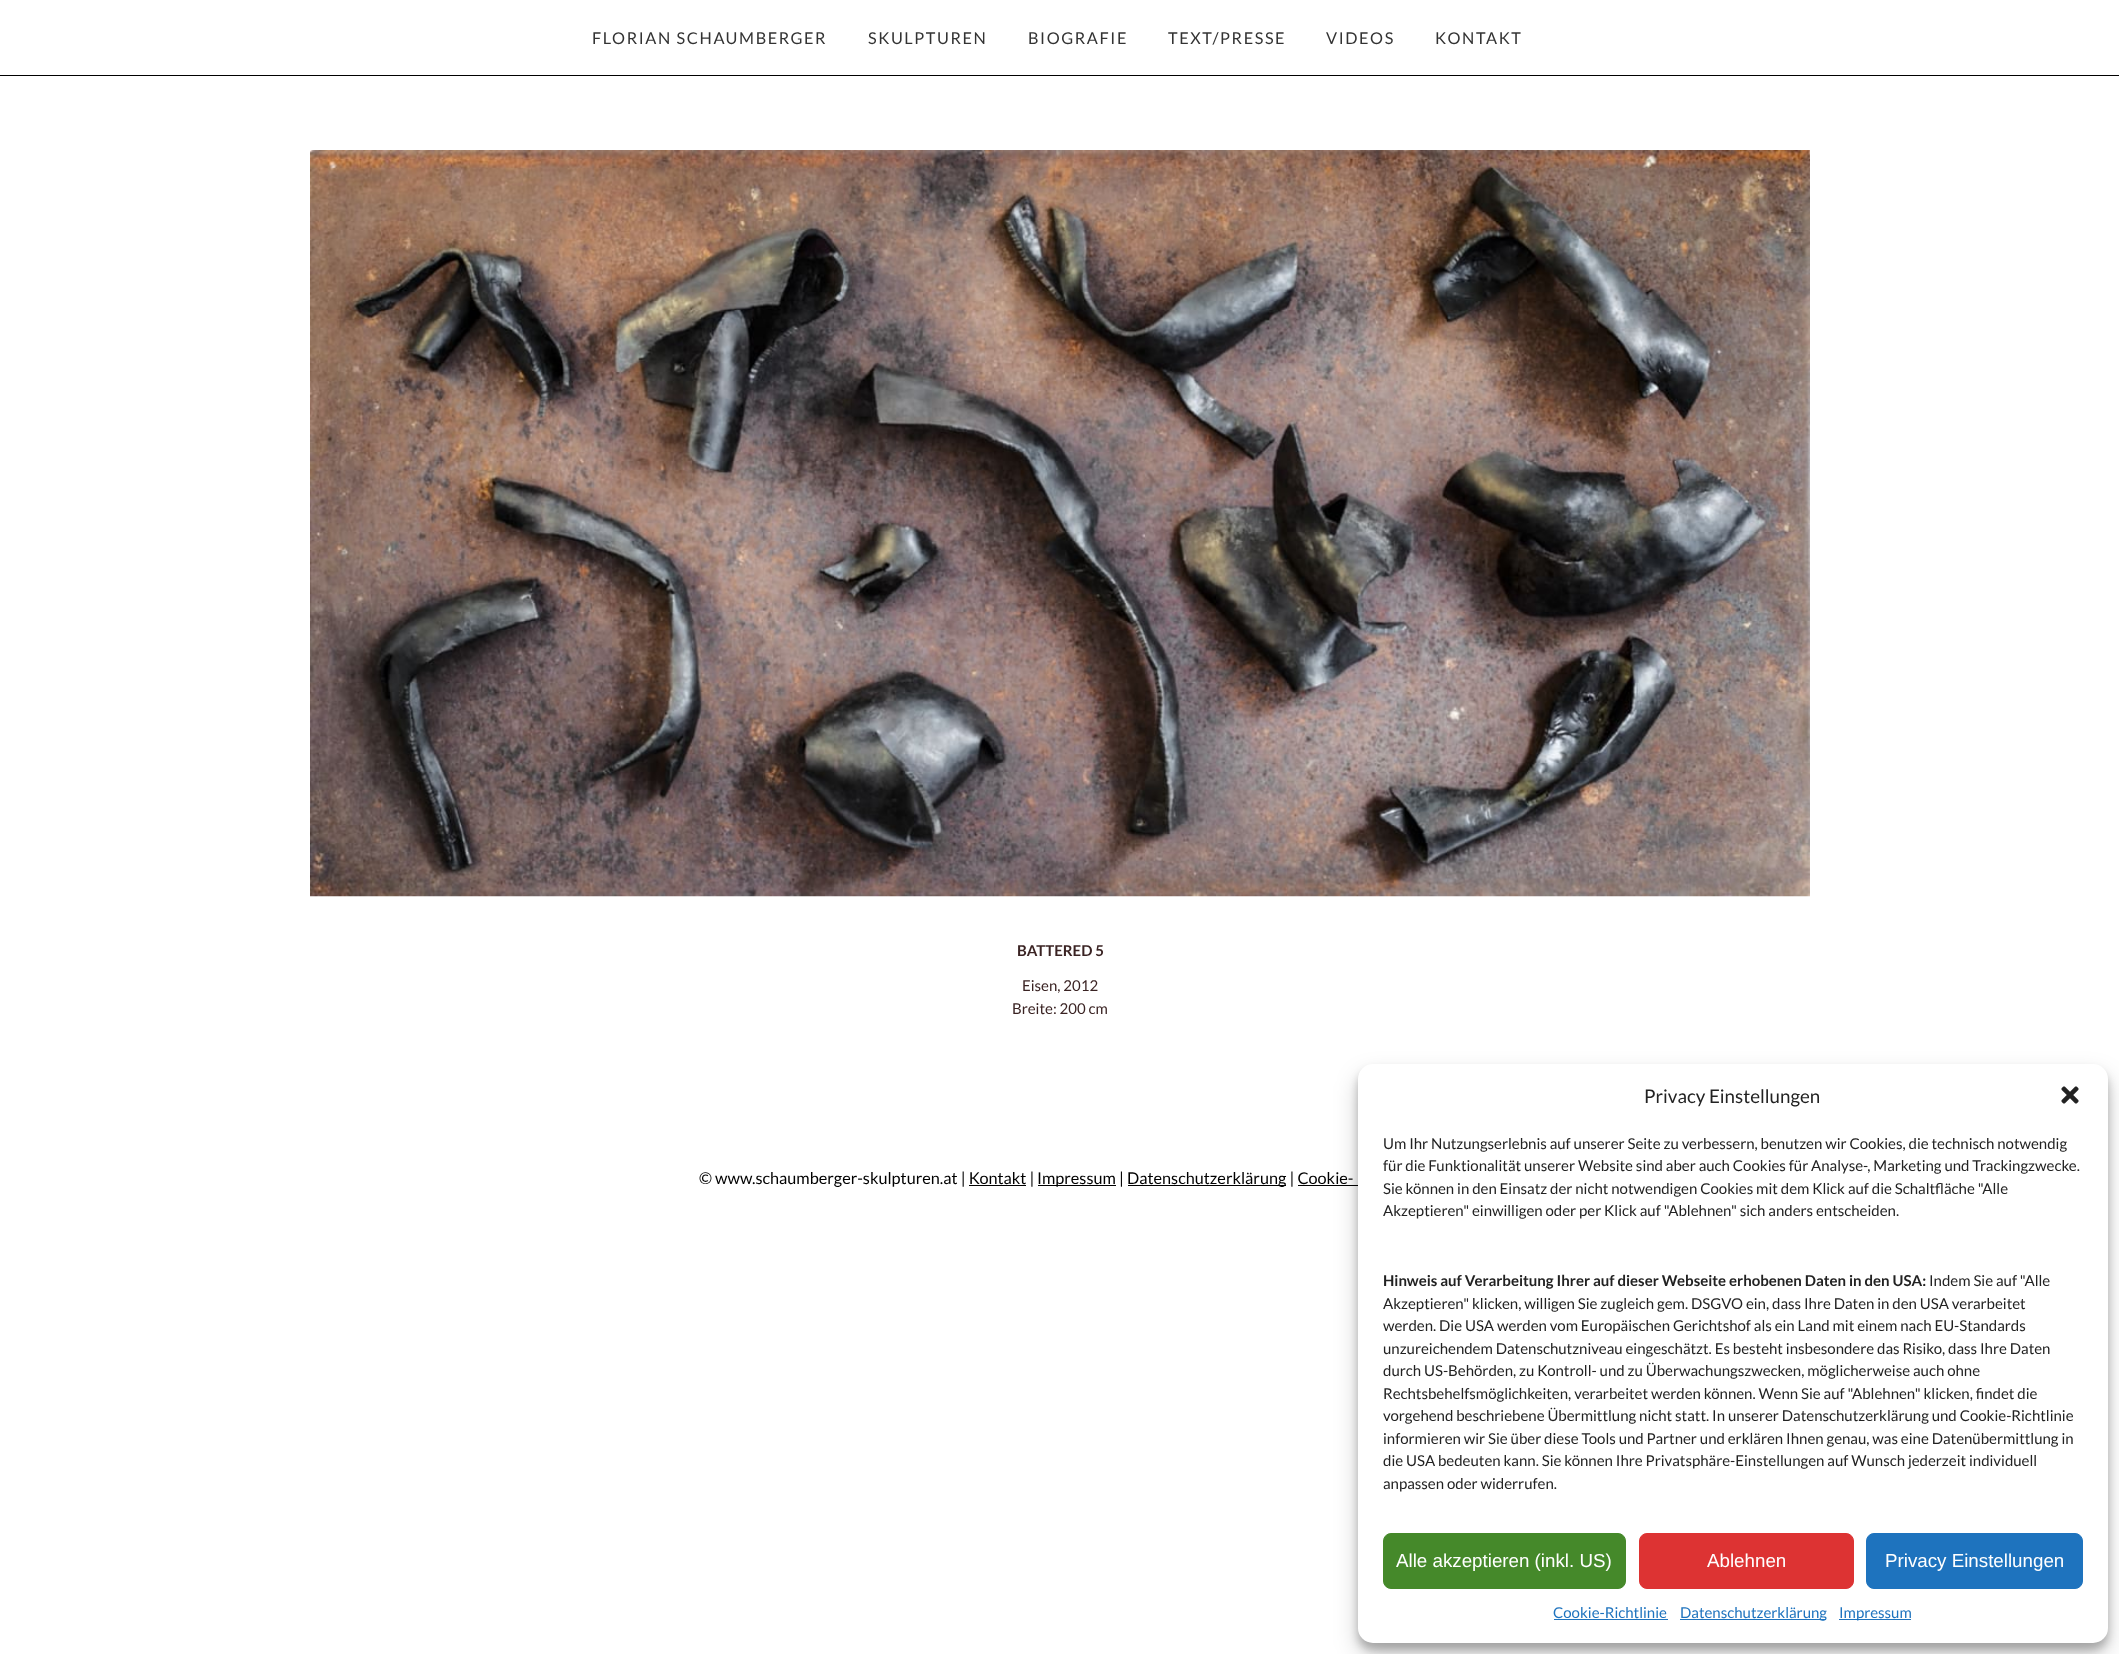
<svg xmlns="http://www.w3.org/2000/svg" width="2119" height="1654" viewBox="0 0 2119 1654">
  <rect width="100%" height="100%" fill="#fff"/>
  <path d="M0 75h2119v1H0z" fill="#000"/>
  <image x="310" y="150" width="1500" height="747" href="img/1.png"/>
  <path d="M1038 1185h78v1H1038z" fill="#000"/>
  <path d="M1128 1185h158v1H1128z" fill="#000"/>
  <path d="M969 1185h57v1H969z" fill="#000"/>
  <path d="M1298 1185h60v1H1298z" fill="#000"/>
  <rect x="1358" y="1071" width="750" height="579" rx="15" fill="#0000003b" filter="blur(4px)"/>
  <rect x="1358" y="1076" width="750" height="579" rx="15" fill="#00000030" filter="blur(12.5px)"/>
  <rect x="1358" y="1064" width="750" height="579" rx="15" fill="#fff"/>
  <image x="2061" y="1086" width="18" height="18" href="img/2.png"/>
  <rect x="1383.5" y="1533.5" width="242" height="55" rx="7.5" fill="#45892a" stroke="#45892a"/>
  <rect x="1639.5" y="1533.5" width="214" height="55" rx="7.5" fill="#d33" stroke="#d33"/>
  <rect x="1866.5" y="1533.5" width="216" height="55" rx="7.5" fill="#1e73be" stroke="#1e73be"/>
  <path d="M1554 1619h114v1H1554z" fill="#1e73be"/>
  <path d="M1680 1619h146v1H1680z" fill="#1e73be"/>
  <path d="M1839 1619h72v1H1839z" fill="#1e73be"/>
  <g font-family="Lato" font-size="16.25" letter-spacing="1.6" fill="#333">
    <text x="592" y="44">FLORIAN SCHAUMBERGER</text>
    <text x="868" y="44">SKULPTUREN</text>
    <text x="1028" y="44">BIOGRAFIE</text>
    <text x="1168" y="44">TEXT/PRESSE</text>
    <text x="1326" y="44">VIDEOS</text>
    <text x="1435" y="44">KONTAKT</text>
  </g>
  <text x="1017" y="956" font-family="Lato" font-size="15" font-weight="bold" fill="#3a2323">BATTERED 5</text>
  <g font-family="Lato" font-size="15" fill="#3a2323">
    <text x="1022" y="991">Eisen, 2012</text>
    <text x="1012" y="1014">Breite: 200 cm</text>
  </g>
  <g font-family="Lato" font-size="16.25" fill="#000">
    <text x="699" y="1184">© www.schaumberger-skulpturen.at | Kontakt |</text>
    <text x="1037" y="1184">Impressum |</text>
    <text x="1127" y="1184">Datenschutzerklärung | Cookie-</text>
  </g>
  <text x="1644" y="1103" font-family="Lato" font-size="18.75" fill="#222">Privacy Einstellungen</text>
  <g font-family="Lato" font-size="15" fill="#222">
    <text x="1383" y="1149">Um Ihr Nutzungserlebnis auf unserer Seite zu verbessern, benutzen wir Cookies, die technisch notwendig</text>
    <text x="1383" y="1171">für die Funktionalität unserer Website sind aber auch Cookies für Analyse-, Marketing und Trackingzwecke.</text>
    <text x="1383" y="1194">Sie können in den Einsatz der nicht notwendigen Cookies mit dem Klick auf die Schaltfläche "Alle</text>
    <text x="1383" y="1216">Akzeptieren" einwilligen oder per Klick auf "Ablehnen" sich anders entscheiden.</text>
  </g>
  <text x="1383" y="1286" font-family="Lato" font-size="15" font-weight="bold" fill="#222">Hinweis auf Verarbeitung Ihrer auf dieser Webseite erhobenen Daten in den USA:</text>
  <g font-family="Lato" font-size="15" fill="#222">
    <text x="1929" y="1286">Indem Sie auf "Alle</text>
    <text x="1383" y="1309">Akzeptieren" klicken, willigen Sie zugleich gem. DSGVO ein, dass Ihre Daten in den USA verarbeitet</text>
    <text x="1383" y="1331">werden. Die USA werden vom Europäischen Gerichtshof als ein Land mit einem nach EU-Standards</text>
    <text x="1383" y="1354">unzureichendem Datenschutzniveau eingeschätzt. Es besteht insbesondere das Risiko, dass Ihre Daten</text>
    <text x="1383" y="1376">durch US-Behörden, zu Kontroll- und zu Überwachungszwecken, möglicherweise auch ohne</text>
    <text x="1383" y="1399">Rechtsbehelfsmöglichkeiten, verarbeitet werden können. Wenn Sie auf "Ablehnen" klicken, findet die</text>
    <text x="1383" y="1421">vorgehend beschriebene Übermittlung nicht statt. In unserer Datenschutzerklärung und Cookie-Richtlinie</text>
    <text x="1383" y="1444">informieren wir Sie über diese Tools und Partner und erklären Ihnen genau, was eine Datenübermittlung in</text>
    <text x="1383" y="1466">die USA bedeuten kann. Sie können Ihre Privatsphäre-Einstellungen auf Wunsch jederzeit individuell</text>
    <text x="1383" y="1489">anpassen oder widerrufen.</text>
  </g>
  <g font-family="Liberation Sans" font-size="18.75" fill="#fff">
    <text x="1396" y="1567">Alle akzeptieren (inkl. US)</text>
    <text x="1707" y="1567">Ablehnen</text>
    <text x="1885" y="1567">Privacy Einstellungen</text>
  </g>
  <g font-family="Lato" font-size="15" fill="#1e73be">
    <text x="1553" y="1618">Cookie-Richtlinie</text>
    <text x="1680" y="1618">Datenschutzerklärung</text>
    <text x="1839" y="1618">Impressum</text>
  </g>
</svg>
